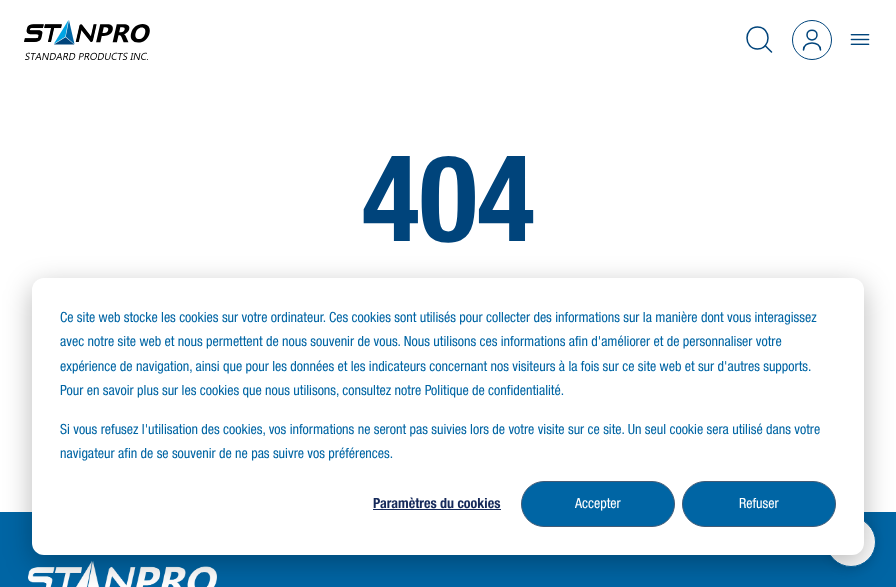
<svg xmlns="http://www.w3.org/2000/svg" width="896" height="587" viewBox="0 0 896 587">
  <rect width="100%" height="100%" fill="#fff"/>
  <image x="24" y="20" width="126" height="40" href="img/1.png"/>
  <path d="M757.5 49C771.5 49 771.5 27 757.5 27C743.5 27 743.5 49 757.5 49ZM765 45.5L771.5 52" fill="none" stroke="#00447b" stroke-width="1.5" stroke-linecap="round" stroke-linejoin="round"/>
  <circle cx="812" cy="40" r="19.5" fill="none" stroke="#00447b"/>
  <path d="M820.5 50C820.5 40.5 803.5 40.5 803.5 50M817 35C817 41.5 807 41.5 807 35C807 28.5 817 28.5 817 35Z" fill="none" stroke="#00447b" stroke-width="1.5" stroke-linecap="round" stroke-linejoin="round"/>
  <image x="850" y="34" width="20" height="11" href="img/2.png"/>
  <path d="M0 512h896v75H0z" fill="#0065a4"/>
  <image x="28" y="560" width="189" height="27" href="img/3.png"/>
  <rect x="826" y="519" width="50" height="50" rx="25" fill="#0000001a" filter="blur(4px)"/>
  <circle cx="851" cy="542" r="24.5" fill="#fff" stroke="#0065a4"/>
  <rect x="32" y="286" width="832" height="277" rx="12" fill="#00000047" filter="blur(14px)"/>
  <rect x="32" y="278" width="832" height="277" rx="12" fill="#fff"/>
  <path d="M373 509h128v1H373z" fill="#15295a"/>
  <rect x="521.5" y="481.5" width="153" height="45" rx="22.5" fill="#0065a4" stroke="#425b76"/>
  <rect x="682.5" y="481.5" width="153" height="45" rx="22.5" fill="#0065a4" stroke="#425b76"/>
  <text x="362" y="241" font-family="Helvetica Neue" font-size="120" font-weight="bold" fill="#00447b">404</text>
  <g font-family="Helvetica Neue" font-size="14" fill="#0065a4">
    <text x="60" y="322">Ce site web stocke les cookies sur votre ordinateur. Ces cookies sont utilisés pour collecter des informations sur la manière dont vous interagissez</text>
    <text x="60" y="346">avec notre site web et nous permettent de nous souvenir de vous. Nous utilisons ces informations afin d'améliorer et de personnaliser votre</text>
    <text x="60" y="371">expérience de navigation, ainsi que pour les données et les indicateurs concernant nos visiteurs à la fois sur ce site web et sur d'autres supports.</text>
    <text x="60" y="395">Pour en savoir plus sur les cookies que nous utilisons, consultez notre Politique de confidentialité.</text>
    <text x="60" y="434">Si vous refusez l'utilisation des cookies, vos informations ne seront pas suivies lors de votre visite sur ce site. Un seul cookie sera utilisé dans votre</text>
    <text x="60" y="458">navigateur afin de se souvenir de ne pas suivre vos préférences.</text>
  </g>
  <text x="373" y="508" font-family="Helvetica Neue" font-size="14" font-weight="bold" fill="#15295a">Paramètres du cookies</text>
  <g font-family="Helvetica Neue" font-size="14" fill="#fff">
    <text x="575" y="508">Accepter</text>
    <text x="739" y="508">Refuser</text>
  </g>
</svg>
